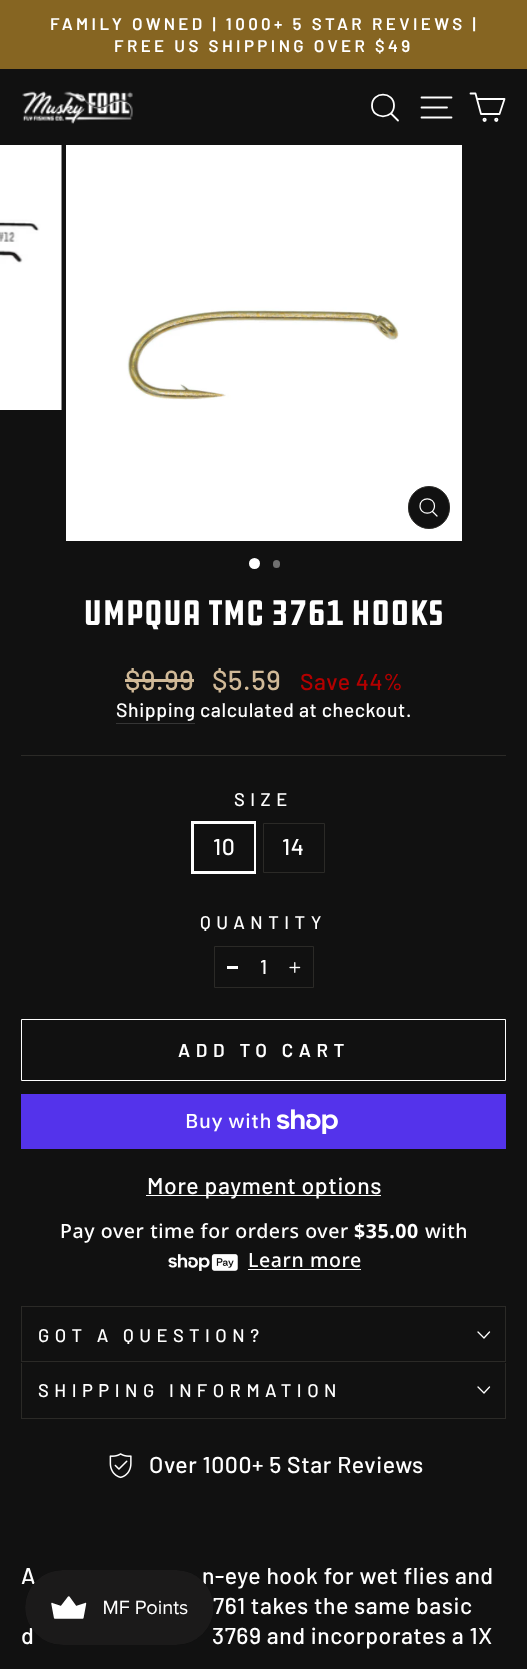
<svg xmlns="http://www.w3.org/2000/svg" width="527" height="1669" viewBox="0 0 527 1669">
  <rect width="100%" height="100%" fill="#111"/>
  <path d="M0 0h527v69H0z" fill="#866522"/>
  <image x="22" y="91" width="111" height="33" href="img/1.png"/>
  <path d="M394 105.5C394 120 372 120 372 105.5C372 91 394 91 394 105.5ZM398 120.5L391 113.5" fill="none" stroke="#fff" stroke-width="1.8" stroke-linecap="round" stroke-linejoin="round"/>
  <path d="M421.5 97.5H451.5M421.5 107.5H447M421.5 117.5H451.5" fill="none" stroke="#fff" stroke-width="1.8" stroke-linecap="round" stroke-linejoin="round"/>
  <path d="M477 99H504.5L499.5 114H481L475.5 93.5H470.5" fill="none" stroke="#fff" stroke-width="1.8" stroke-linecap="round" stroke-linejoin="round"/>
  <circle cx="484.6" cy="119.8" r="1.2" fill="none" stroke="#fff" stroke-width="1.8"/>
  <circle cx="496.3" cy="119.8" r="1.2" fill="none" stroke="#fff" stroke-width="1.8"/>
  <image x="0" y="145" width="62" height="265" href="img/2.png"/>
  <image x="66" y="145" width="396" height="396" href="img/3.png"/>
  <rect x="408.5" y="486.5" width="41" height="42" rx="20.5" fill="#111" stroke="#2b2a27"/>
  <path d="M434.5 506C434.5 515.5 420 515.5 420 506C420 496.5 434.5 496.5 434.5 506ZM437 516L432.5 511.5" fill="none" stroke="#fff" stroke-width="1.2" stroke-linecap="round" stroke-linejoin="round"/>
  <circle cx="254.5" cy="563.5" r="5.5" fill="#fff"/>
  <rect x="273" y="560" width="7" height="8" rx="3.5" fill="#707070"/>
  <path d="M125 679h69v3H125z" fill="#d1ba98"/>
  <path d="M116 723h79v1H116z" fill="#353535"/>
  <path d="M21 755h485v1H21z" fill="#2b2a27"/>
  <path d="M192.5 822.5h62v50H192.5z" fill="none" stroke="#fff" stroke-width="3"/>
  <path d="M253 824h1v47H253z" fill="#111"/>
  <path d="M263.5 823.5h61v49H263.5z" fill="none" stroke="#2b2a27"/>
  <path d="M214.5 946.5h99v41H214.5z" fill="none" stroke="#2b2a27"/>
  <path d="M227 966h11v3H227z" fill="#fff"/>
  <image x="289" y="962" width="12" height="11" href="img/4.png"/>
  <path d="M21.5 1019.5h484v61H21.5z" fill="none" stroke="#fff"/>
  <path d="M21 1094h485v55H21z" fill="#5433eb"/>
  <image x="276" y="1109" width="62" height="25" href="img/5.png"/>
  <path d="M146 1195h235v1H146z" fill="#fff"/>
  <image x="168" y="1254" width="70" height="17" href="img/6.png"/>
  <path d="M248 1269h113v1H248z" fill="#fff"/>
  <path d="M21 1361h485v1H21z" fill="#2b2a27"/>
  <path d="M21 1306h485v1H21z" fill="#2b2a27"/>
  <path d="M505 1306h1v55H505z" fill="#2b2a27"/>
  <path d="M21 1306h1v55H21z" fill="#2b2a27"/>
  <path d="M478 1332L484 1338L489.5 1332" fill="none" stroke="#fff" stroke-width="1.3" stroke-linecap="round" stroke-linejoin="round"/>
  <path d="M21 1418h485v1H21z" fill="#2b2a27"/>
  <path d="M505 1363h1v55H505z" fill="#2b2a27"/>
  <path d="M21 1363h1v55H21z" fill="#2b2a27"/>
  <path d="M478 1387L484 1393L489.5 1387" fill="none" stroke="#fff" stroke-width="1.3" stroke-linecap="round" stroke-linejoin="round"/>
  <image x="109" y="1453" width="23" height="26" href="img/7.png"/>
  <g font-family="Barlow" font-size="16.9" font-weight="600" letter-spacing="3.4" fill="#fff">
    <text x="50" y="30">FAMILY OWNED | 1000+ 5 STAR REVIEWS |</text>
    <text x="114" y="52">FREE US SHIPPING OVER $49</text>
  </g>
  <text x="83" y="625" font-family="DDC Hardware" font-size="36.5" fill="#fff">UMPQUA TMC 3761 HOOKS</text>
  <g font-family="Barlow" font-size="27.5" font-weight="500" letter-spacing="0.6" fill="#d1ba98">
    <text x="125" y="690">$9.99</text>
    <text x="212" y="690">$5.59</text>
  </g>
  <text x="300" y="690" font-family="Barlow" font-size="23" font-weight="500" letter-spacing="0.6" fill="#b30000">Save 44%</text>
  <g font-family="Barlow" font-size="19.5" font-weight="500" letter-spacing="0.6" fill="#fff">
    <text x="116" y="717">Shipping</text>
    <text x="200" y="717">calculated at checkout.</text>
  </g>
  <text x="234" y="806" font-family="Barlow" font-size="18.4" font-weight="500" letter-spacing="5.5" fill="#fff">SIZE</text>
  <g font-family="Barlow" font-size="23" font-weight="500" letter-spacing="0.6" fill="#fff">
    <text x="213" y="855">10</text>
    <text x="282" y="855">14</text>
  </g>
  <text x="200" y="929" font-family="Barlow" font-size="18.4" font-weight="500" letter-spacing="5.5" fill="#fff">QUANTITY</text>
  <text x="260" y="974" font-family="Barlow" font-size="20" font-weight="500" fill="#fff">1</text>
  <text x="178" y="1057" font-family="Barlow" font-size="18.75" font-weight="600" letter-spacing="5.6" fill="#fff">ADD TO CART</text>
  <text x="185" y="1128" font-family="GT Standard" font-size="20" font-weight="500" letter-spacing="0.6" fill="#fff">Buy with</text>
  <text x="147" y="1194" font-family="Barlow" font-size="23" font-weight="500" letter-spacing="0.6" fill="#fff">More payment options</text>
  <text x="60" y="1238" font-family="Noto Sans" font-size="19.5" font-weight="500" letter-spacing="0.6" fill="#fff">Pay over time for orders over</text>
  <text x="354" y="1238" font-family="Noto Sans" font-size="19.5" font-weight="bold" letter-spacing="0.6" fill="#fff">$35.00</text>
  <g font-family="Noto Sans" font-size="19.5" font-weight="500" letter-spacing="0.6" fill="#fff">
    <text x="425" y="1238">with</text>
    <text x="248" y="1267">Learn more</text>
  </g>
  <g font-family="Barlow" font-size="18.4" font-weight="500" letter-spacing="5.5" fill="#fff">
    <text x="38" y="1342">GOT A QUESTION?</text>
    <text x="38" y="1397">SHIPPING INFORMATION</text>
  </g>
  <g font-family="Barlow" font-size="23" font-weight="500" letter-spacing="0.6" fill="#fff">
    <text x="149" y="1473">Over 1000+ 5 Star Reviews</text>
    <text x="21" y="1584">A</text>
    <text x="202" y="1584">n-eye hook for wet flies and</text>
    <text x="213" y="1614">761 takes the same basic</text>
    <text x="21" y="1644">d</text>
    <text x="212" y="1644">3769 and incorporates a 1X</text>
  </g>
  <image x="25" y="1570" width="188" height="75" href="img/8.png"/>
</svg>
